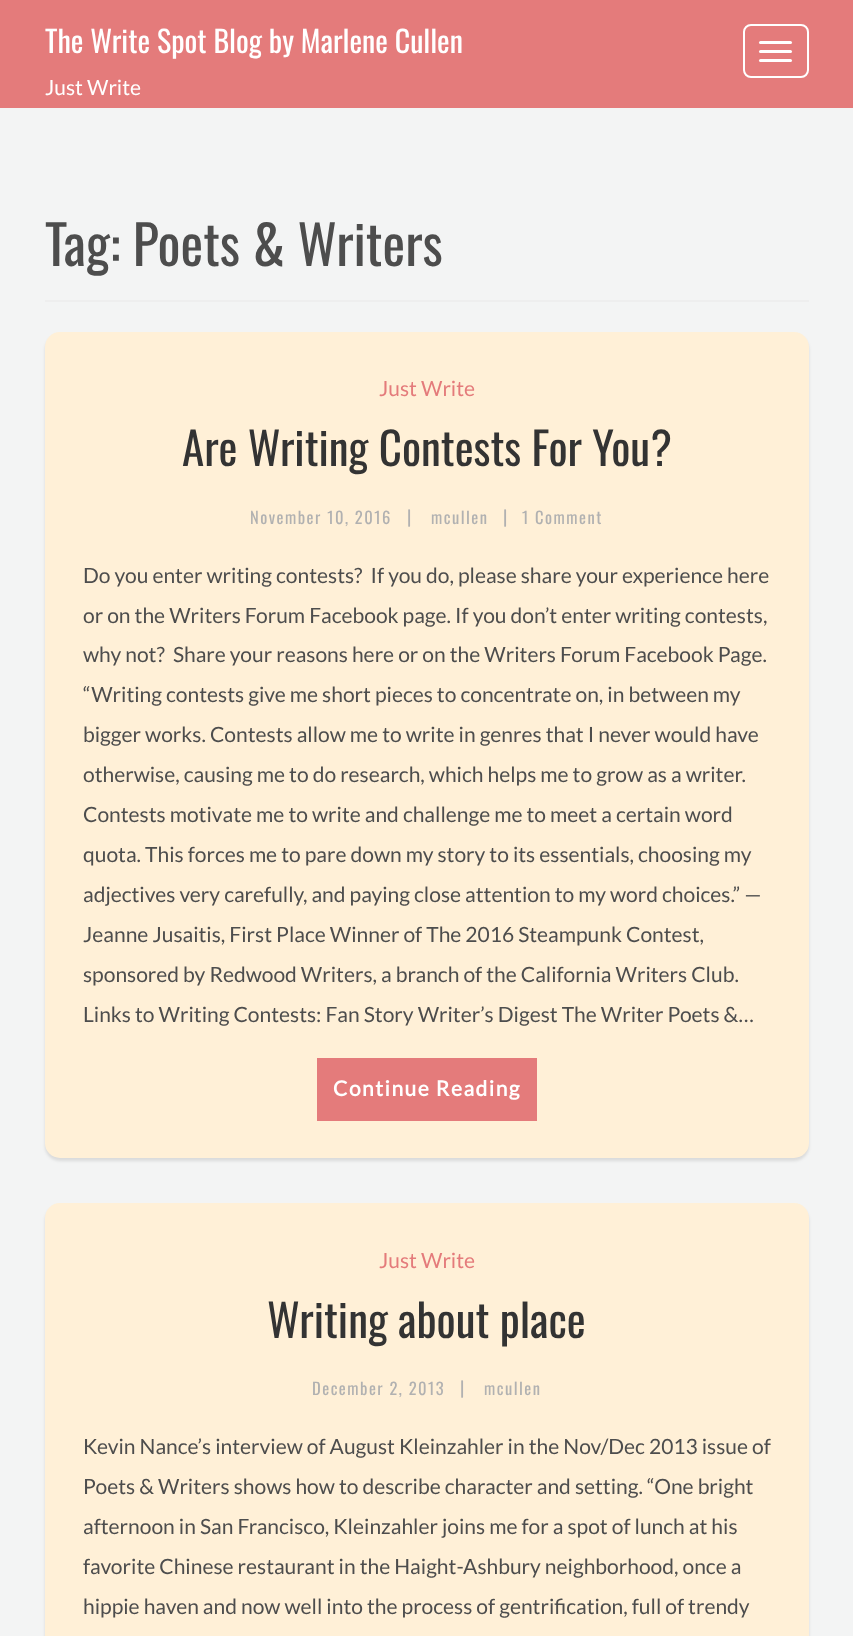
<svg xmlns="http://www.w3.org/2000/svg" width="853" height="1636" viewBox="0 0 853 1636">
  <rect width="100%" height="100%" fill="#f3f4f4"/>
  <path d="M0 0h853v108H0z" fill="#e47b7b"/>
  <rect x="744" y="25" width="64" height="52" rx="7" fill="none" stroke="#fff" stroke-width="2"/>
  <rect x="759" y="41" width="33" height="3" rx="1.5" fill="#fff"/>
  <rect x="759" y="50" width="33" height="3" rx="1.5" fill="#fff"/>
  <rect x="759" y="59" width="33" height="3" rx="1.5" fill="#fff"/>
  <path d="M45 300h764v2H45z" fill="#eee"/>
  <rect x="45" y="335" width="764" height="826" rx="15" fill="#0000001a" filter="blur(1.5px)"/>
  <rect x="45" y="332" width="764" height="826" rx="15" fill="#fff0d7"/>
  <path d="M317 1058h220v63H317z" fill="#e47b7b"/>
  <rect x="45" y="1206" width="764" height="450" rx="15" fill="#0000001a" filter="blur(1.5px)"/>
  <rect x="45" y="1203" width="764" height="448" rx="15" fill="#fff0d7"/>
  <text x="45" y="53" font-family="Oswald" font-size="30" fill="#fff">The Write Spot Blog by Marlene Cullen</text>
  <text x="45" y="95" font-family="Lato" font-size="21" fill="#fff">Just Write</text>
  <text x="45" y="266" font-family="Oswald" font-size="54" fill="#4d4d4d">Tag: Poets &amp; Writers</text>
  <text x="379" y="396" font-family="Lato" font-size="21" fill="#e47b7b">Just Write</text>
  <text x="182" y="466" font-family="Oswald" font-size="45" fill="#333">Are Writing Contests For You?</text>
  <text x="250" y="524" font-family="Oswald" font-size="16.5" letter-spacing="1.5" fill="#b1b1b1">November 10, 2016</text>
  <text x="407" y="524" font-family="Oswald" font-size="18" fill="#b1b1b1">|</text>
  <text x="431" y="524" font-family="Oswald" font-size="16.5" letter-spacing="1.5" fill="#b1b1b1">mcullen</text>
  <text x="503" y="524" font-family="Oswald" font-size="18" fill="#b1b1b1">|</text>
  <text x="522" y="524" font-family="Oswald" font-size="16.5" letter-spacing="1.5" fill="#b1b1b1">1 Comment</text>
  <g font-family="Lato" font-size="21" fill="#4d4d4d">
    <text x="83" y="583" xml:space="preserve">Do you enter writing contests?  If you do, please share your experience here</text>
    <text x="83" y="623">or on the Writers Forum Facebook page. If you don’t enter writing contests,</text>
    <text x="83" y="662" xml:space="preserve">why not?  Share your reasons here or on the Writers Forum Facebook Page.</text>
    <text x="83" y="702">“Writing contests give me short pieces to concentrate on, in between my</text>
    <text x="83" y="742">bigger works. Contests allow me to write in genres that I never would have</text>
    <text x="83" y="782">otherwise, causing me to do research, which helps me to grow as a writer.</text>
    <text x="83" y="822">Contests motivate me to write and challenge me to meet a certain word</text>
    <text x="83" y="862">quota. This forces me to pare down my story to its essentials, choosing my</text>
    <text x="83" y="902">adjectives very carefully, and paying close attention to my word choices.” —</text>
    <text x="83" y="942">Jeanne Jusaitis, First Place Winner of The 2016 Steampunk Contest,</text>
    <text x="83" y="982">sponsored by Redwood Writers, a branch of the California Writers Club.</text>
    <text x="83" y="1022">Links to Writing Contests: Fan Story Writer’s Digest The Writer Poets &amp;…</text>
  </g>
  <text x="333" y="1096" font-family="Lato" font-size="21" font-weight="bold" letter-spacing="1.5" fill="#fff">Continue Reading</text>
  <text x="379" y="1268" font-family="Lato" font-size="21" fill="#e47b7b">Just Write</text>
  <text x="267" y="1338" font-family="Oswald" font-size="45" fill="#333">Writing about place</text>
  <text x="312" y="1395" font-family="Oswald" font-size="16.5" letter-spacing="1.5" fill="#b1b1b1">December 2, 2013</text>
  <text x="460" y="1395" font-family="Oswald" font-size="18" fill="#b1b1b1">|</text>
  <text x="484" y="1395" font-family="Oswald" font-size="16.5" letter-spacing="1.5" fill="#b1b1b1">mcullen</text>
  <g font-family="Lato" font-size="21" fill="#4d4d4d">
    <text x="83" y="1454">Kevin Nance’s interview of August Kleinzahler in the Nov/Dec 2013 issue of</text>
    <text x="83" y="1494">Poets &amp; Writers shows how to describe character and setting. “One bright</text>
    <text x="83" y="1534">afternoon in San Francisco, Kleinzahler joins me for a spot of lunch at his</text>
    <text x="83" y="1574">favorite Chinese restaurant in the Haight-Ashbury neighborhood, once a</text>
    <text x="83" y="1614">hippie haven and now well into the process of gentrification, full of trendy</text>
  </g>
</svg>
